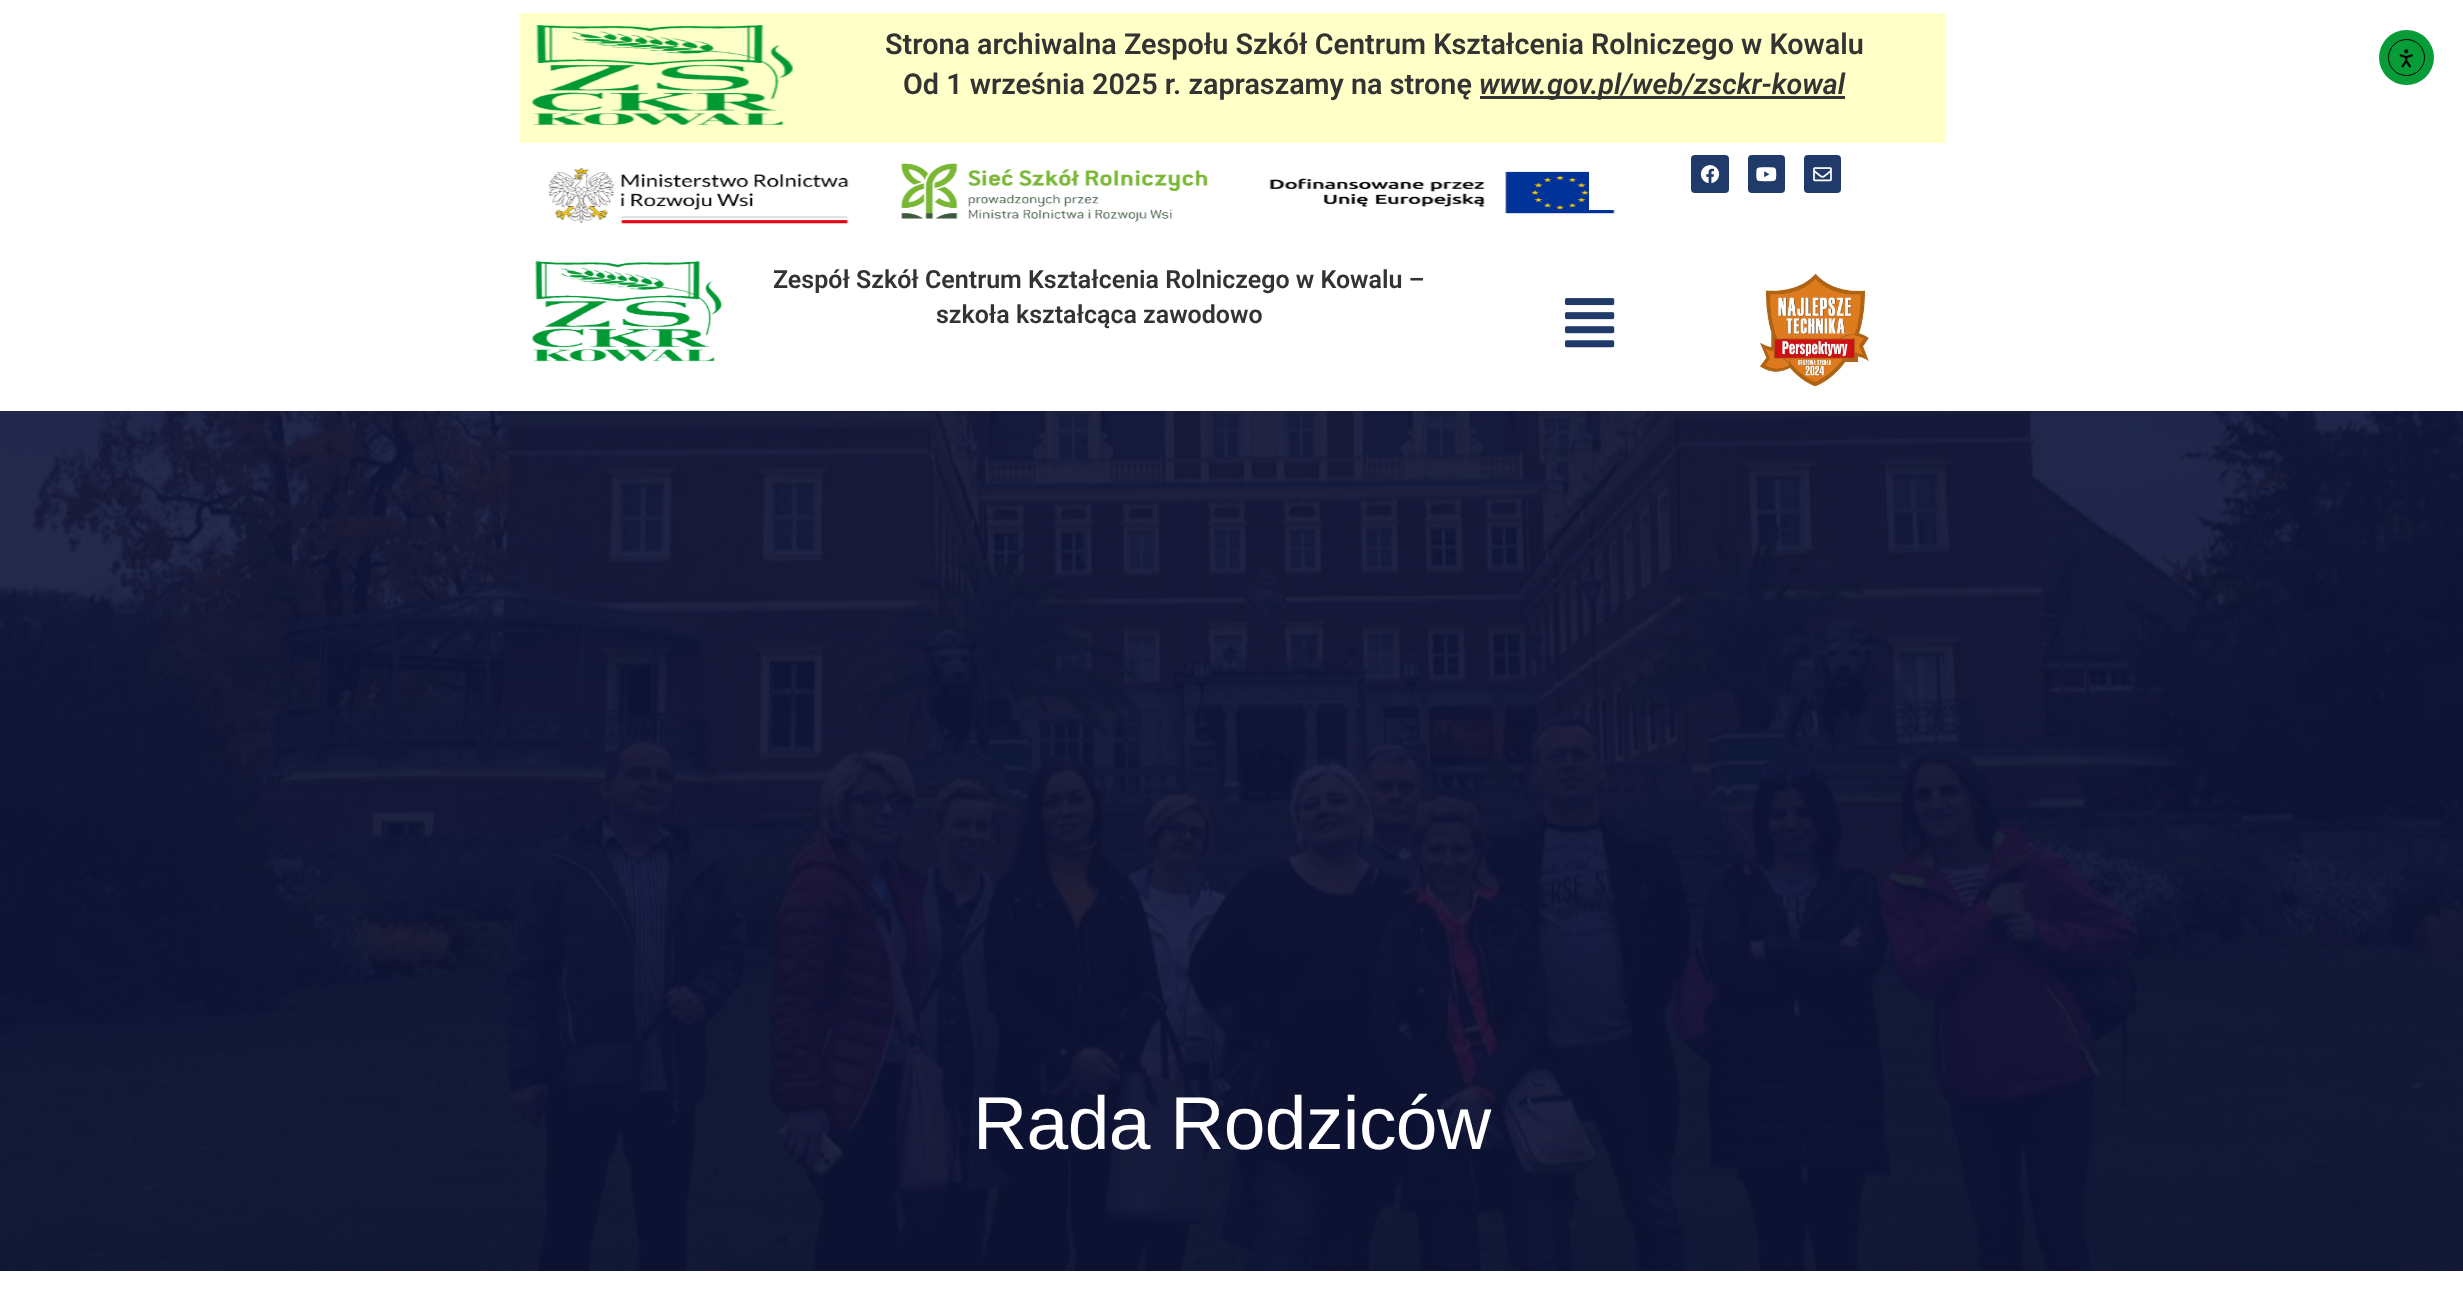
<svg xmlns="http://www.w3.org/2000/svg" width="2463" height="1302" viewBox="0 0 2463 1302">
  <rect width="100%" height="100%" fill="#fff"/>
  <path d="M520 13h1425v130H520z" fill="#ffffc8"/>
  <image x="532" y="25" width="261" height="100" href="img/1.png"/>
  <path d="M1480 96h365v3H1480z" fill="#333"/>
  <image x="548" y="167" width="301" height="57" href="img/2.png"/>
  <image x="901" y="163" width="307" height="59" href="img/3.png"/>
  <image x="1269" y="171" width="347" height="43" href="img/4.png"/>
  <path d="M1589 171h27v39H1589z" fill="#fff"/>
  <rect x="1691" y="155" width="38" height="38" rx="4" fill="#203b6a"/>
  <image x="1700" y="165" width="20" height="19" href="img/5.png"/>
  <rect x="1748" y="155" width="37" height="38" rx="4" fill="#203b6a"/>
  <image x="1756" y="167" width="21" height="15" href="img/6.png"/>
  <rect x="1804" y="155" width="37" height="38" rx="4" fill="#203b6a"/>
  <image x="1813" y="167" width="19" height="15" href="img/7.png"/>
  <image x="532" y="261" width="190" height="101" href="img/8.png"/>
  <image x="1565" y="298" width="50" height="50" href="img/9.png"/>
  <image x="1760" y="273" width="109" height="114" href="img/10.png"/>
  <image x="0" y="411" width="2463" height="860" href="img/11.png"/>
  <circle cx="2406.5" cy="57.5" r="27.5" fill="#089c39"/>
  <circle cx="2406.5" cy="57.5" r="18" fill="none" stroke="#000"/>
  <image x="2399" y="49" width="14" height="19" href="img/12.png"/>
  <g font-family="Roboto" font-size="28.75" font-weight="600" fill="#333">
    <text x="885" y="54">Strona archiwalna Zespołu Szkół Centrum Kształcenia Rolniczego w Kowalu</text>
    <text x="903" y="94">Od 1 września 2025 r. zapraszamy na stronę</text>
  </g>
  <text x="1479" y="94" font-family="Roboto" font-size="28.75" font-weight="600" font-style="italic" fill="#333">www.gov.pl/web/zsckr-kowal</text>
  <g font-family="Roboto" font-size="25" font-weight="600" fill="#333">
    <text x="773" y="288">Zespół Szkół Centrum Kształcenia Rolniczego w Kowalu –</text>
    <text x="936" y="323">szkoła kształcąca zawodowo</text>
  </g>
  <text x="973" y="1149" font-family="Liberation Sans" font-size="75" letter-spacing="-0.6" fill="#fff">Rada Rodziców</text>
</svg>
